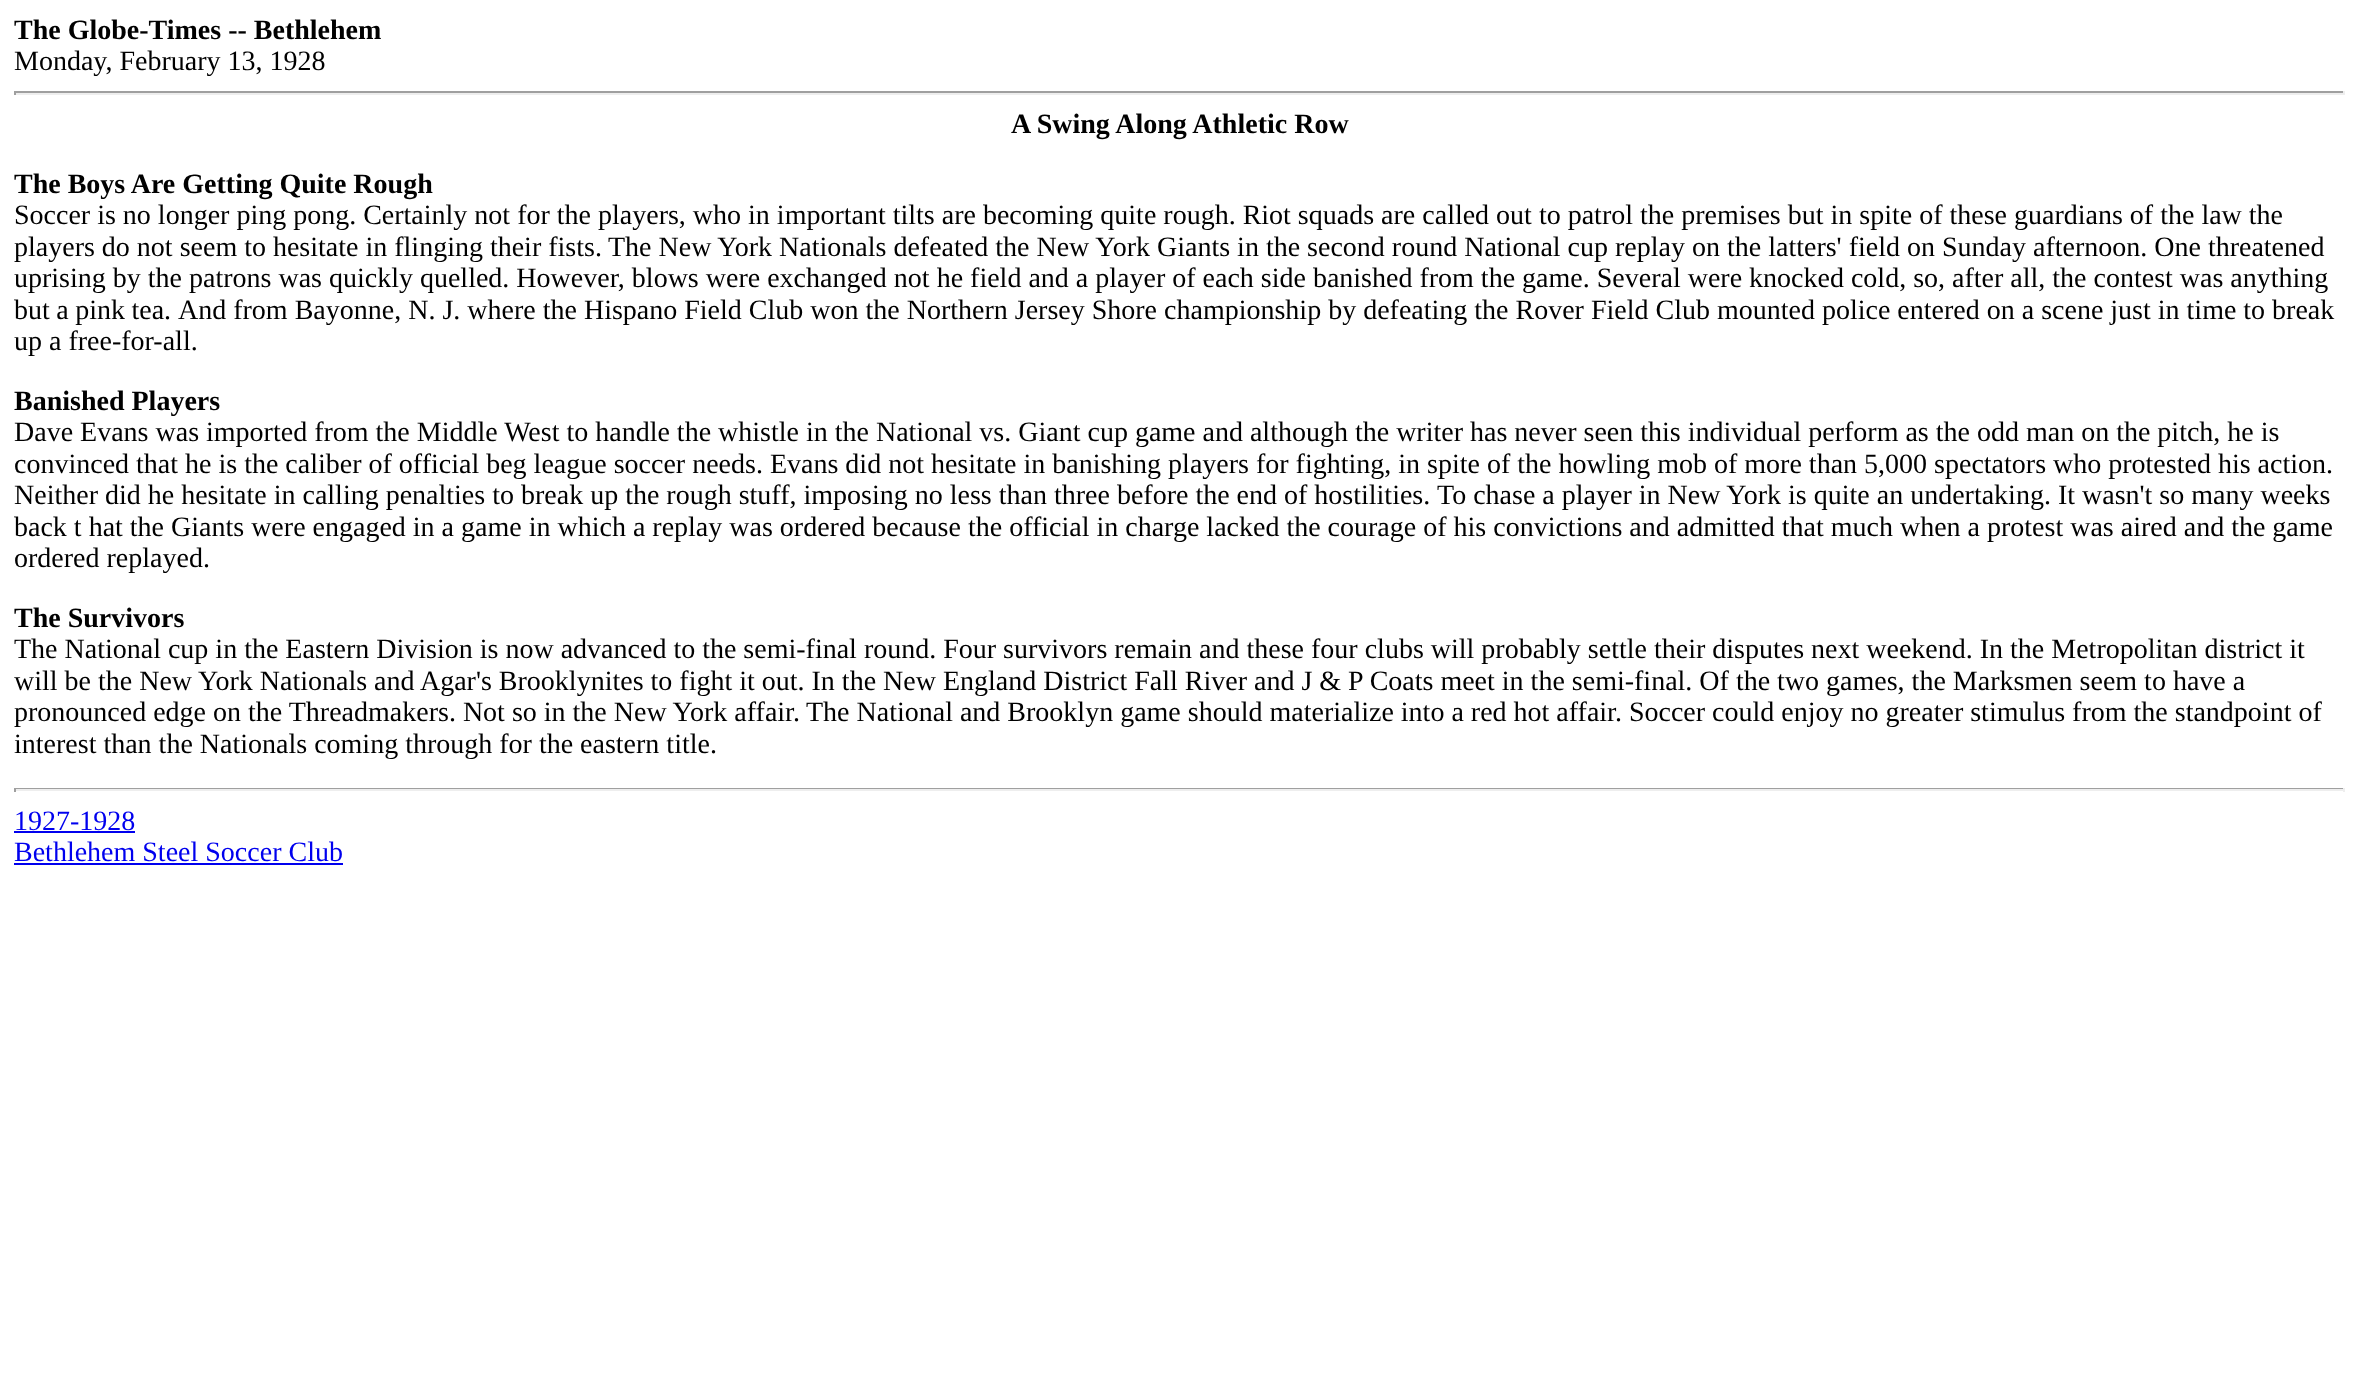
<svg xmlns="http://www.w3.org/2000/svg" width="2358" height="1384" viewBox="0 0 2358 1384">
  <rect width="100%" height="100%" fill="#fff"/>
  <path d="M14 91h2331v2H14z" fill="#9f9f9f"/>
  <path d="M2343 91h2v4H2343z" fill="#eee"/>
  <path d="M14 93h2331v2H14z" fill="#eee"/>
  <path d="M14 91h2v4H14z" fill="#9f9f9f"/>
  <path d="M14 788h2331v1H14z" fill="#9f9f9f"/>
  <path d="M2343 788h2v4H2343z" fill="#eee"/>
  <path d="M14 789h2331v2H14z" fill="#eee"/>
  <path d="M14 788h2v4H14z" fill="#9f9f9f"/>
  <path d="M14 831h121v2H14z" fill="#00e"/>
  <path d="M14 863h329v2H14z" fill="#00e"/>
  <text x="14" y="39" font-family="Liberation Serif" font-size="28" font-weight="bold" fill="#000">The Globe-Times -- Bethlehem</text>
  <text x="14" y="70" font-family="Liberation Serif" font-size="28" fill="#000">Monday, February 13, 1928</text>
  <g font-family="Liberation Serif" font-size="28" font-weight="bold" fill="#000">
    <text x="1011" y="133">A Swing Along Athletic Row</text>
    <text x="14" y="193">The Boys Are Getting Quite Rough</text>
  </g>
  <g font-family="Liberation Serif" font-size="28" fill="#000">
    <text x="14" y="224">Soccer is no longer ping pong. Certainly not for the players, who in important tilts are becoming quite rough. Riot squads are called out to patrol the premises but in spite of these guardians of the law the</text>
    <text x="14" y="256">players do not seem to hesitate in flinging their fists.</text>
    <text x="608" y="256">The New York Nationals defeated the New York Giants in the second round National cup replay on the latters' field on Sunday afternoon. One threatened</text>
    <text x="14" y="287">uprising by the patrons was quickly quelled. However, blows were exchanged not he field and a player of each side banished from the game. Several were knocked cold, so, after all, the contest was anything</text>
    <text x="14" y="319" word-spacing="-0.5">but a pink tea.</text>
    <text x="178" y="319">And from Bayonne, N. J. where the Hispano Field Club won the Northern Jersey Shore championship by defeating the Rover Field Club mounted police entered on a scene just in time to break</text>
    <text x="14" y="350">up a free-for-all.</text>
  </g>
  <text x="14" y="410" font-family="Liberation Serif" font-size="28" font-weight="bold" fill="#000">Banished Players</text>
  <g font-family="Liberation Serif" font-size="28" fill="#000">
    <text x="14" y="441">Dave Evans was imported from the Middle West to handle the whistle in the National vs. Giant cup game and although the writer has never seen this individual perform as the odd man on the pitch, he is</text>
    <text x="14" y="473">convinced that he is the caliber of official beg league soccer needs. Evans did not hesitate in banishing players for fighting, in spite of the howling mob of more than 5,000 spectators who protested his action.</text>
    <text x="14" y="504">Neither did he hesitate in calling penalties to break up the rough stuff, imposing no less than three before the end of hostilities.</text>
    <text x="1437" y="504">To chase a player in New York is quite an undertaking. It wasn't so many weeks</text>
    <text x="14" y="536">back t hat the Giants were engaged in a game in which a replay was ordered because the official in charge lacked the courage of his convictions and admitted that much when a protest was aired and the game</text>
    <text x="14" y="567">ordered replayed.</text>
  </g>
  <text x="14" y="627" font-family="Liberation Serif" font-size="28" font-weight="bold" fill="#000">The Survivors</text>
  <g font-family="Liberation Serif" font-size="28" fill="#000">
    <text x="14" y="658">The National cup in the Eastern Division is now advanced to the semi-final round. Four survivors remain and these four clubs will probably settle their disputes next weekend. In the Metropolitan district it</text>
    <text x="14" y="690">will be the New York Nationals and Agar's Brooklynites to fight it out. In the New England District Fall River and J &amp; P Coats meet in the semi-final. Of the two games, the Marksmen seem to have a</text>
    <text x="14" y="721">pronounced edge on the Threadmakers. Not so in the New York affair.</text>
    <text x="806" y="721">The National and Brooklyn game should materialize into a red hot affair. Soccer could enjoy no greater stimulus from the standpoint of</text>
    <text x="14" y="753">interest than the Nationals coming through for the eastern title.</text>
  </g>
  <g font-family="Liberation Serif" font-size="28" fill="#00e">
    <text x="14" y="830">1927-1928</text>
    <text x="14" y="861">Bethlehem Steel Soccer Club</text>
  </g>
</svg>
